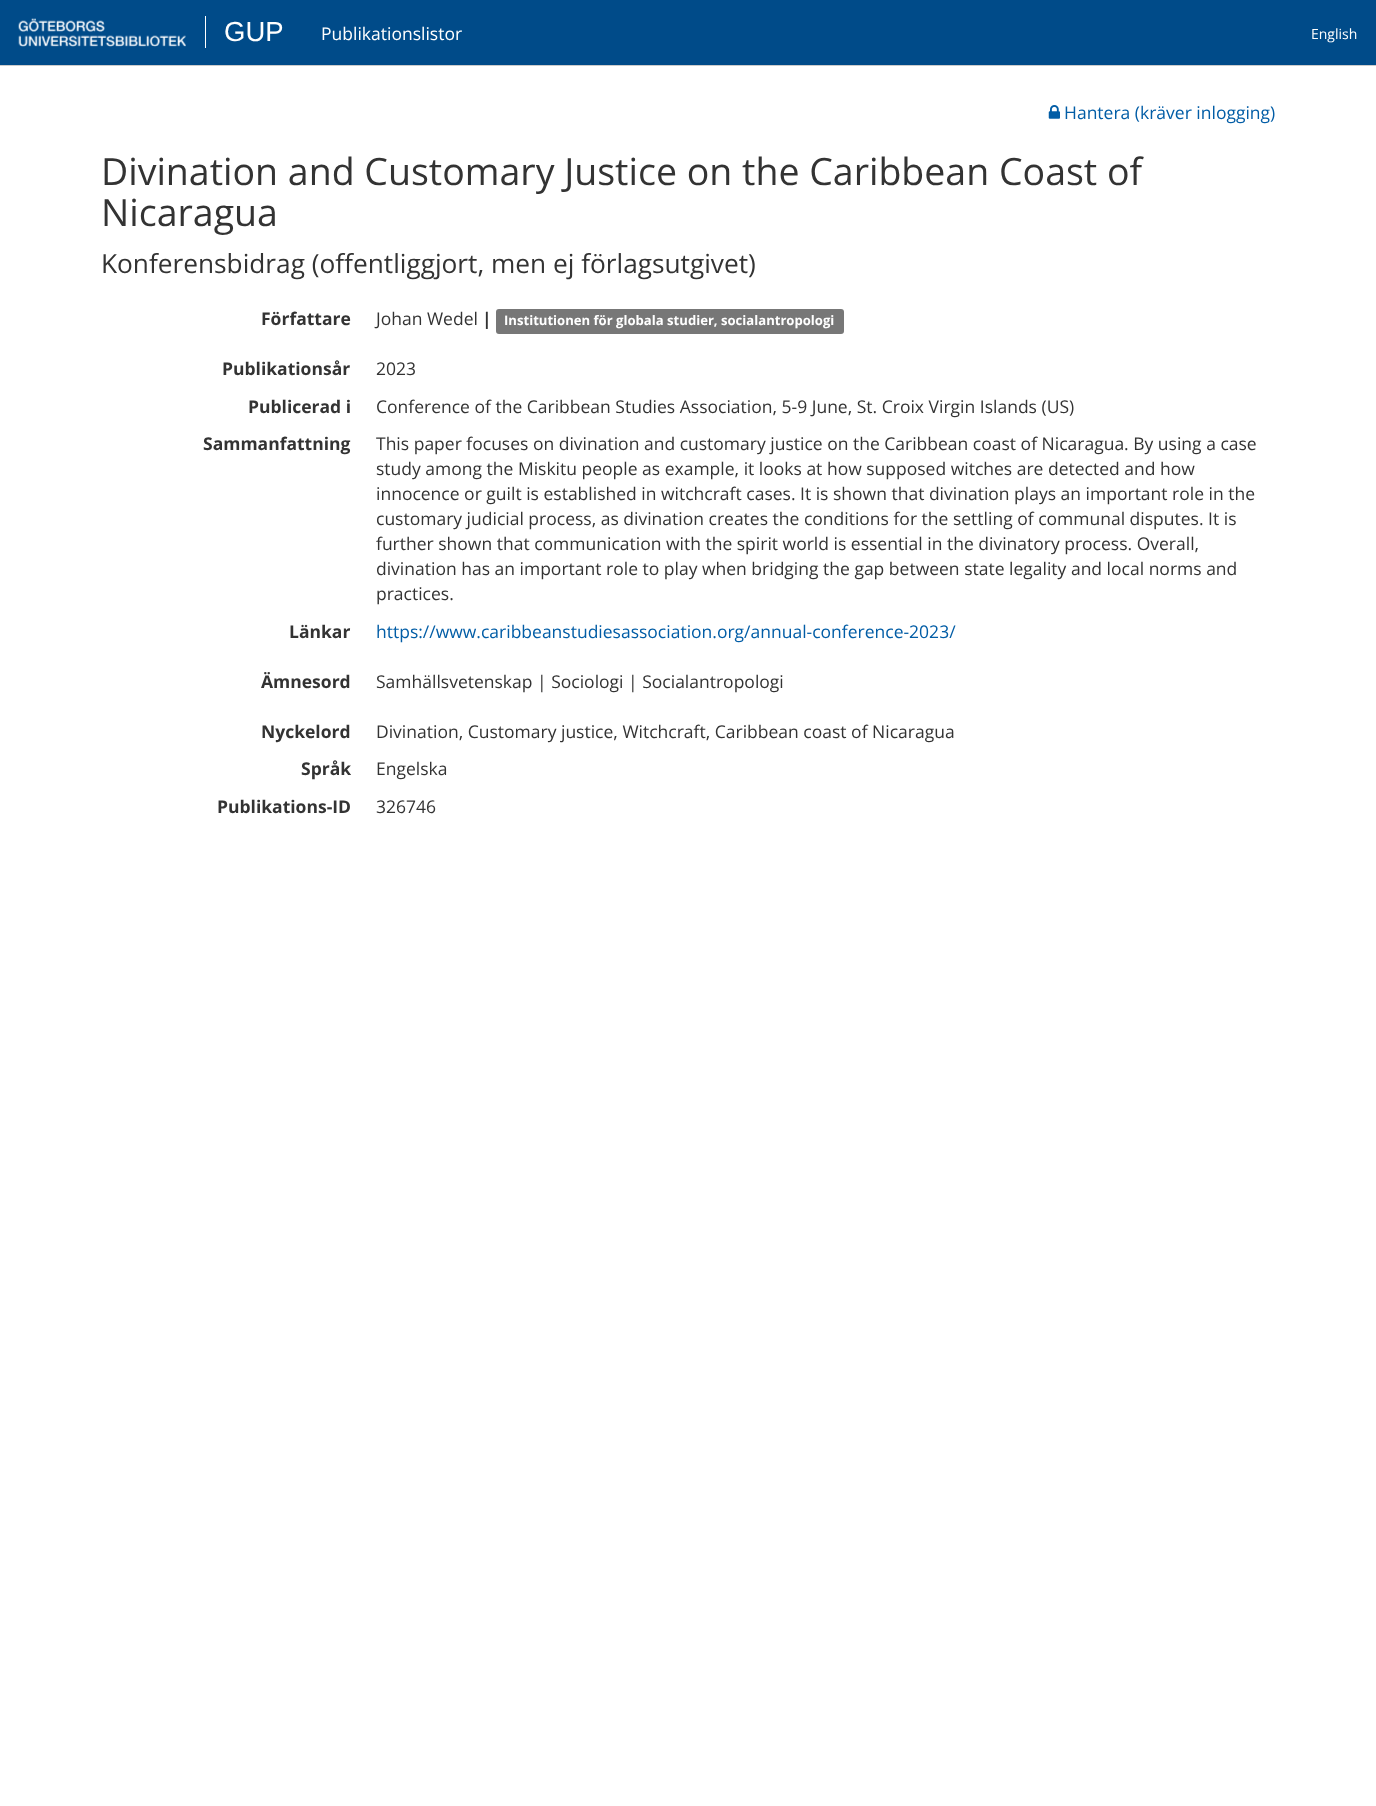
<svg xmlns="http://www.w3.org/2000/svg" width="1376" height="1806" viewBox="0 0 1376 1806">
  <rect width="100%" height="100%" fill="#fff"/>
  <path d="M0 0h1376v65H0z" fill="#004b89"/>
  <path d="M0 65h1376v1H0z" fill="#ccc"/>
  <image x="18" y="18" width="168" height="29" href="img/1.png"/>
  <path d="M205 16h1v32H205z" fill="#fff"/>
  <image x="1048" y="105" width="12" height="14" href="img/2.png"/>
  <rect x="496" y="309" width="348" height="25" rx="3" fill="#777"/>
  <text x="224" y="41" font-family="Liberation Sans" font-size="27.5" fill="#fff">GUP</text>
  <text x="321" y="40" font-family="Open Sans" font-size="17.5" fill="#fff">Publikationslistor</text>
  <text x="1311" y="39" font-family="Open Sans" font-size="14" fill="#fff">English</text>
  <text x="1064" y="119" font-family="Open Sans" font-size="17.5" fill="#025da6">Hantera (kräver inlogging)</text>
  <g font-family="Open Sans" font-size="37.5" fill="#333">
    <text x="101" y="185">Divination and Customary Justice on the Caribbean Coast of</text>
    <text x="101" y="226">Nicaragua</text>
  </g>
  <text x="101" y="273" font-family="Open Sans" font-size="26.25" fill="#333">Konferensbidrag (offentliggjort, men ej förlagsutgivet)</text>
  <text x="261" y="325" font-family="Open Sans" font-size="17.5" font-weight="bold" fill="#333">Författare</text>
  <text x="376" y="325" font-family="Open Sans" font-size="17.5" fill="#333">Johan Wedel</text>
  <text x="482" y="325" font-family="Open Sans" font-size="17.5" font-weight="bold" fill="#333">|</text>
  <text x="504" y="325" font-family="Open Sans" font-size="13.1" font-weight="bold" fill="#fff">Institutionen för globala studier, socialantropologi</text>
  <text x="222" y="375" font-family="Open Sans" font-size="17.5" font-weight="bold" fill="#333">Publikationsår</text>
  <text x="376" y="375" font-family="Open Sans" font-size="17.5" fill="#333">2023</text>
  <text x="248" y="413" font-family="Open Sans" font-size="17.5" font-weight="bold" fill="#333">Publicerad i</text>
  <text x="376" y="413" font-family="Open Sans" font-size="17.5" fill="#333">Conference of the Caribbean Studies Association, 5-9 June, St. Croix Virgin Islands (US)</text>
  <text x="203" y="450" font-family="Open Sans" font-size="17.5" font-weight="bold" fill="#333">Sammanfattning</text>
  <g font-family="Open Sans" font-size="17.5" fill="#333">
    <text x="376" y="450">This paper focuses on divination and customary justice on the Caribbean coast of Nicaragua. By using a case</text>
    <text x="376" y="475">study among the Miskitu people as example, it looks at how supposed witches are detected and how</text>
    <text x="376" y="500">innocence or guilt is established in witchcraft cases. It is shown that divination plays an important role in the</text>
    <text x="376" y="525">customary judicial process, as divination creates the conditions for the settling of communal disputes. It is</text>
    <text x="376" y="550">further shown that communication with the spirit world is essential in the divinatory process. Overall,</text>
    <text x="376" y="575">divination has an important role to play when bridging the gap between state legality and local norms and</text>
    <text x="376" y="600">practices.</text>
  </g>
  <text x="289" y="638" font-family="Open Sans" font-size="17.5" font-weight="bold" fill="#333">Länkar</text>
  <text x="376" y="638" font-family="Open Sans" font-size="17.5" fill="#025da6">https://www.caribbeanstudiesassociation.org/annual-conference-2023/</text>
  <text x="261" y="688" font-family="Open Sans" font-size="17.5" font-weight="bold" fill="#333">Ämnesord</text>
  <text x="376" y="688" font-family="Open Sans" font-size="17.5" fill="#333">Samhällsvetenskap | Sociologi | Socialantropologi</text>
  <text x="261" y="738" font-family="Open Sans" font-size="17.5" font-weight="bold" fill="#333">Nyckelord</text>
  <text x="376" y="738" font-family="Open Sans" font-size="17.5" fill="#333">Divination, Customary justice, Witchcraft, Caribbean coast of Nicaragua</text>
  <text x="301" y="775" font-family="Open Sans" font-size="17.5" font-weight="bold" fill="#333">Språk</text>
  <text x="376" y="775" font-family="Open Sans" font-size="17.5" fill="#333">Engelska</text>
  <text x="217" y="813" font-family="Open Sans" font-size="17.5" font-weight="bold" fill="#333">Publikations-ID</text>
  <text x="376" y="813" font-family="Open Sans" font-size="17.5" fill="#333">326746</text>
</svg>
